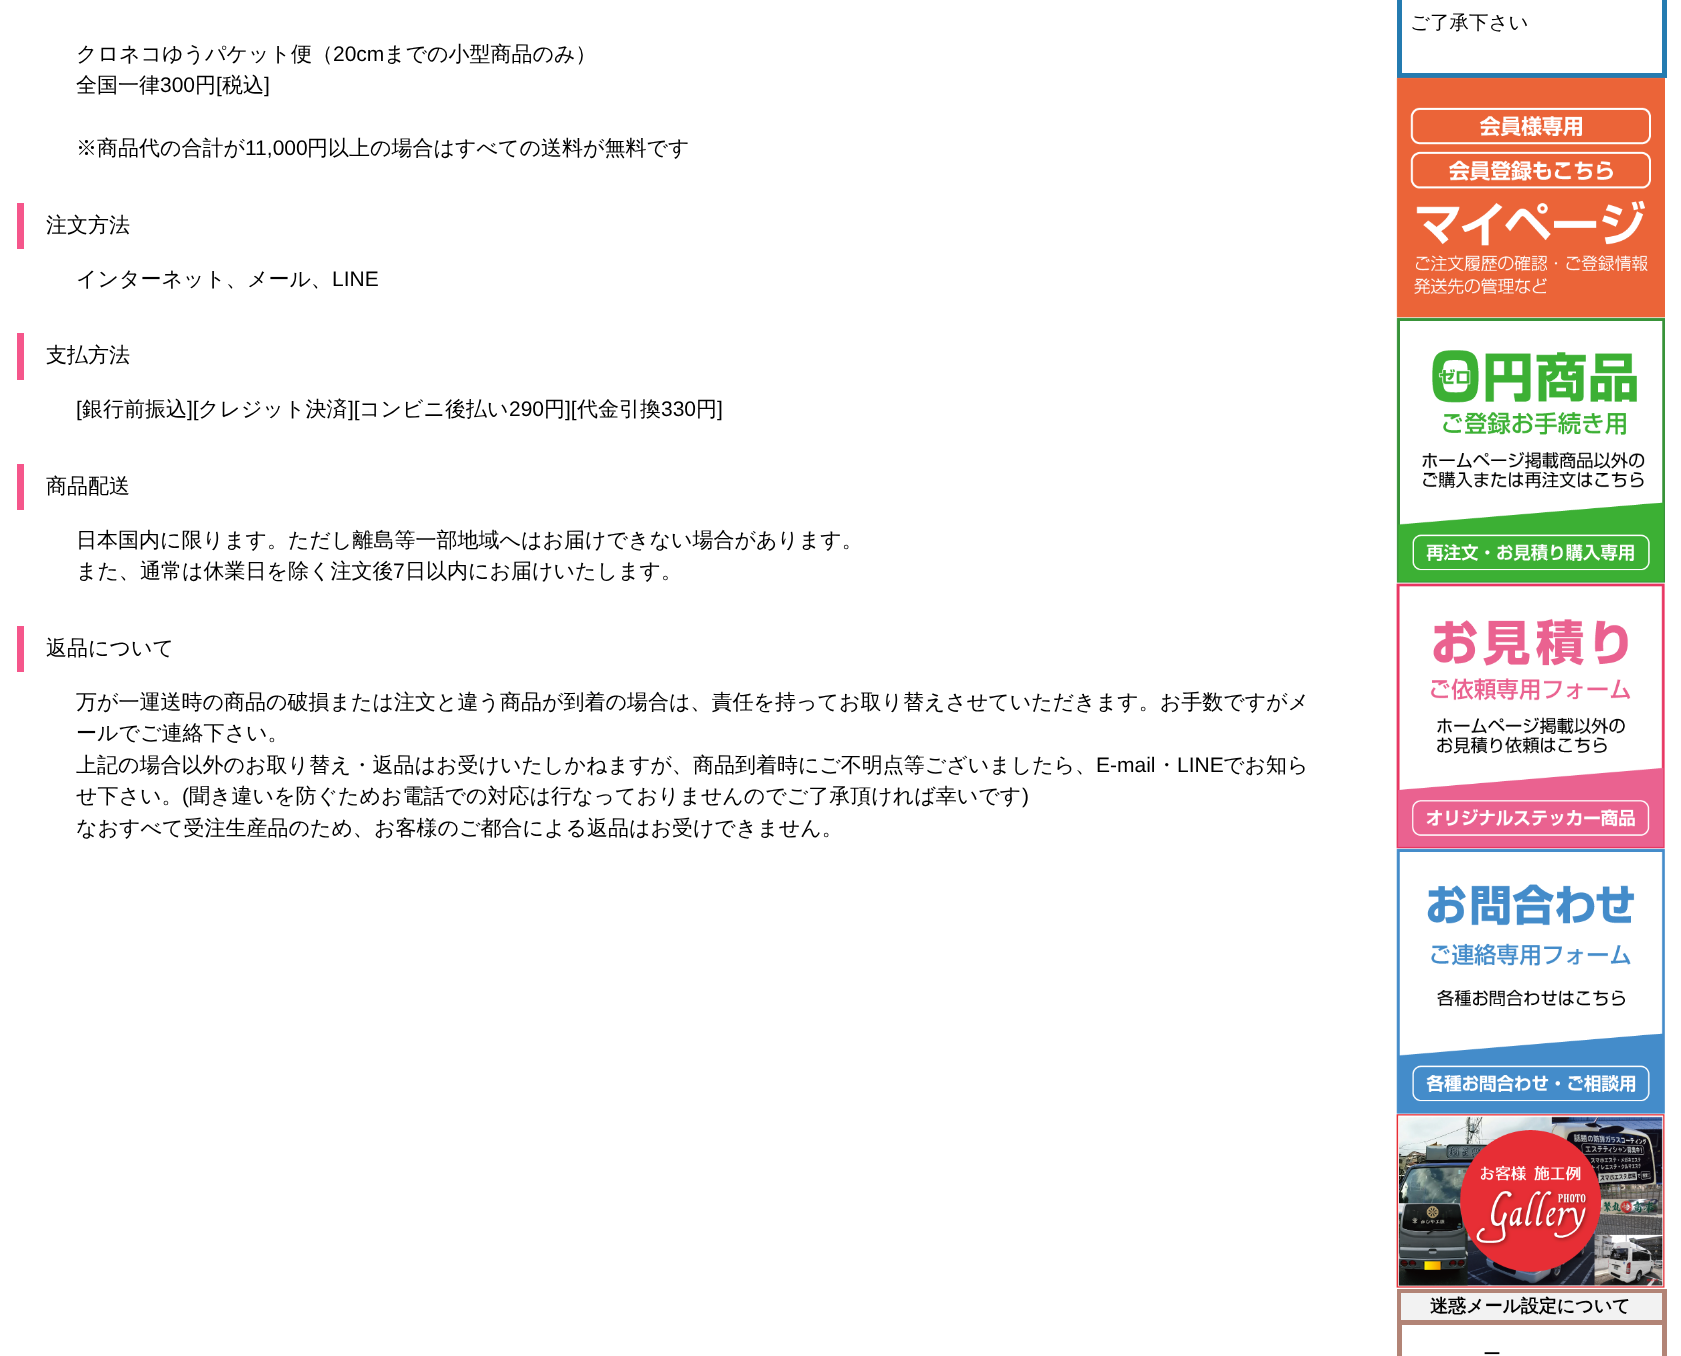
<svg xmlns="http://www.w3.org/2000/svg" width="1681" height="1356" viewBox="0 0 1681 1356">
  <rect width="100%" height="100%" fill="#fff"/>
  <path d="M17 203h7v46H17z" fill="#f5568b"/>
  <path d="M17 333h7v47H17z" fill="#f5568b"/>
  <path d="M17 464h7v46H17z" fill="#f5568b"/>
  <path d="M17 626h7v46H17z" fill="#f5568b"/>
  <path d="M1399.5 -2.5h265v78H1399.5z" fill="none" stroke="#247bb0" stroke-width="5"/>
  <image x="1396" y="77" width="269" height="241" href="img/1.png"/>
  <image x="1396" y="317" width="269" height="266" href="img/2.png"/>
  <image x="1396" y="583" width="269" height="266" href="img/3.png"/>
  <image x="1396" y="848" width="269" height="266" href="img/4.png"/>
  <image x="1396" y="1114" width="269" height="174" href="img/5.png"/>
  <path d="M1399.5 1291.5h265v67H1399.5z" fill="none" stroke="#b28476" stroke-width="5"/>
  <path d="M1401 1293h261v27H1401z" fill="#f2f2f2"/>
  <path d="M1401 1320h261v5H1401z" fill="#b28476"/>
  <text x="76" y="61" font-family="WenQuanYi Zen Hei" font-size="21" font-weight="500" fill="#000">クロネコゆうパケット便（</text>
  <text x="333" y="61" font-family="Liberation Sans" font-size="21" fill="#000">20cm</text>
  <g font-family="WenQuanYi Zen Hei" font-size="21" font-weight="500" fill="#000">
    <text x="384" y="61">までの小型商品のみ）</text>
    <text x="76" y="92">全国一律</text>
  </g>
  <text x="160" y="92" font-family="Liberation Sans" font-size="21" fill="#000">300</text>
  <text x="195" y="92" font-family="WenQuanYi Zen Hei" font-size="21" font-weight="500" fill="#000">円</text>
  <text x="216" y="92" font-family="Liberation Sans" font-size="21" fill="#000">[</text>
  <text x="222" y="92" font-family="WenQuanYi Zen Hei" font-size="21" font-weight="500" fill="#000">税込</text>
  <text x="264" y="92" font-family="Liberation Sans" font-size="21" fill="#000">]</text>
  <text x="76" y="155" font-family="WenQuanYi Zen Hei" font-size="21" font-weight="500" fill="#000">※商品代の合計が</text>
  <text x="245" y="155" font-family="Liberation Sans" font-size="21" fill="#000">11,000</text>
  <g font-family="WenQuanYi Zen Hei" font-size="21" font-weight="500" fill="#000">
    <text x="307" y="155">円以上の場合はすべての送料が無料です</text>
    <text x="46" y="232">注文方法</text>
    <text x="76" y="286">インターネット、メール、</text>
  </g>
  <text x="332" y="286" font-family="Liberation Sans" font-size="21" fill="#000">LINE</text>
  <text x="46" y="362" font-family="WenQuanYi Zen Hei" font-size="21" font-weight="500" fill="#000">支払方法</text>
  <text x="76" y="416" font-family="Liberation Sans" font-size="21" fill="#000">[</text>
  <text x="82" y="416" font-family="WenQuanYi Zen Hei" font-size="21" font-weight="500" fill="#000">銀行前振込</text>
  <text x="187" y="416" font-family="Liberation Sans" font-size="21" fill="#000">][</text>
  <text x="198" y="416" font-family="WenQuanYi Zen Hei" font-size="21" font-weight="500" fill="#000">クレジット決済</text>
  <text x="348" y="416" font-family="Liberation Sans" font-size="21" fill="#000">][</text>
  <text x="359" y="416" font-family="WenQuanYi Zen Hei" font-size="21" font-weight="500" fill="#000">コンビニ後払い</text>
  <text x="509" y="416" font-family="Liberation Sans" font-size="21" fill="#000">290</text>
  <text x="544" y="416" font-family="WenQuanYi Zen Hei" font-size="21" font-weight="500" fill="#000">円</text>
  <text x="565" y="416" font-family="Liberation Sans" font-size="21" fill="#000">][</text>
  <text x="577" y="416" font-family="WenQuanYi Zen Hei" font-size="21" font-weight="500" fill="#000">代金引換</text>
  <text x="661" y="416" font-family="Liberation Sans" font-size="21" fill="#000">330</text>
  <text x="696" y="416" font-family="WenQuanYi Zen Hei" font-size="21" font-weight="500" fill="#000">円</text>
  <text x="717" y="416" font-family="Liberation Sans" font-size="21" fill="#000">]</text>
  <g font-family="WenQuanYi Zen Hei" font-size="21" font-weight="500" fill="#000">
    <text x="46" y="493">商品配送</text>
    <text x="76" y="547">日本国内に限ります。ただし離島等一部地域へはお届けできない場合があります。</text>
    <text x="76" y="578">また、通常は休業日を除く注文後</text>
  </g>
  <text x="393" y="578" font-family="Liberation Sans" font-size="21" fill="#000">7</text>
  <g font-family="WenQuanYi Zen Hei" font-size="21" font-weight="500" fill="#000">
    <text x="405" y="578">日以内にお届けいたします。</text>
    <text x="46" y="655">返品について</text>
    <text x="76" y="709">万が一運送時の商品の破損または注文と違う商品が到着の場合は、責任を持ってお取り替えさせていただきます。お手数ですがメ</text>
    <text x="76" y="740">ールでご連絡下さい。</text>
    <text x="76" y="772">上記の場合以外のお取り替え・返品はお受けいたしかねますが、商品到着時にご不明点等ございましたら、</text>
  </g>
  <text x="1096" y="772" font-family="Liberation Sans" font-size="21" fill="#000">E-mail</text>
  <text x="1156" y="772" font-family="WenQuanYi Zen Hei" font-size="21" font-weight="500" fill="#000">・</text>
  <text x="1177" y="772" font-family="Liberation Sans" font-size="21" fill="#000">LINE</text>
  <g font-family="WenQuanYi Zen Hei" font-size="21" font-weight="500" fill="#000">
    <text x="1223" y="772">でお知ら</text>
    <text x="76" y="803">せ下さい。</text>
  </g>
  <text x="182" y="803" font-family="Liberation Sans" font-size="21" fill="#000">(</text>
  <text x="189" y="803" font-family="WenQuanYi Zen Hei" font-size="21" font-weight="500" fill="#000">聞き違いを防ぐためお電話での対応は行なっておりませんのでご了承頂ければ幸いです</text>
  <text x="1022" y="803" font-family="Liberation Sans" font-size="21" fill="#000">)</text>
  <text x="76" y="835" font-family="WenQuanYi Zen Hei" font-size="21" font-weight="500" fill="#000">なおすべて受注生産品のため、お客様のご都合による返品はお受けできません。</text>
  <text x="1410" y="29" font-family="WenQuanYi Zen Hei" font-size="19.5" font-weight="500" fill="#000">ご了承下さい</text>
  <text x="1430" y="1312" font-family="WenQuanYi Zen Hei" font-size="18" font-weight="bold" fill="#000">迷惑メール設定について</text>
  <text x="1483" y="1360" font-family="WenQuanYi Zen Hei" font-size="18" font-weight="500" fill="#000">ー</text>
</svg>
